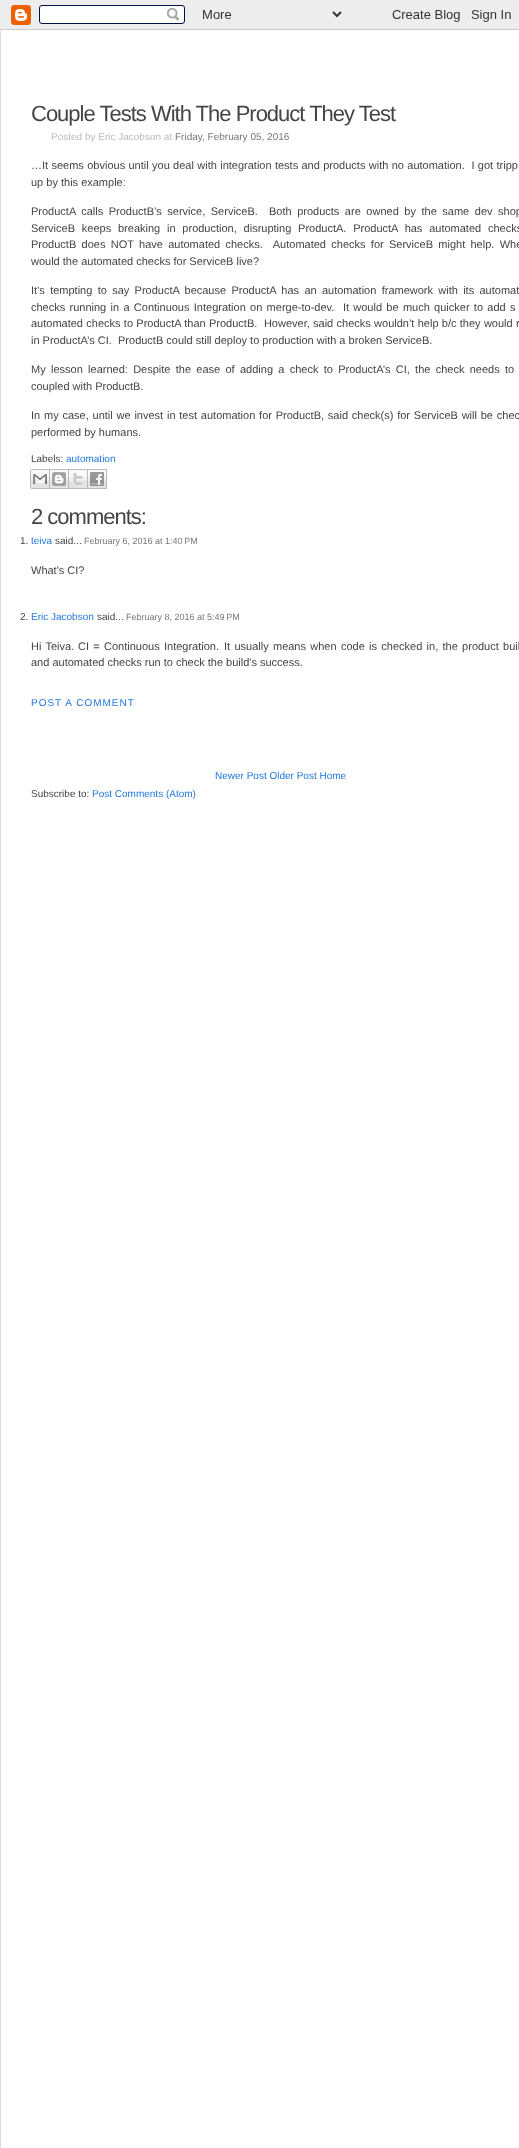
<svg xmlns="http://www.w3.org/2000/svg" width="519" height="2148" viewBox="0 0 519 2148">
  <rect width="100%" height="100%" fill="#ededed"/>
  <image x="0" y="5" width="519" height="25" href="img/1.png"/>
  <path d="M1 30h518v2118H1z" fill="#fff"/>
  <path d="M0 30h1v2118H0z" fill="#ddd"/>
  <image x="30" y="469" width="20" height="20" href="img/2.png"/>
  <image x="50" y="469" width="19" height="20" href="img/3.png"/>
  <image x="69" y="469" width="19" height="20" href="img/4.png"/>
  <image x="88" y="469" width="19" height="20" href="img/5.png"/>
  <text x="31" y="121" font-family="Liberation Sans" font-size="22" letter-spacing="-1" fill="#444">Couple Tests With The Product They Test</text>
  <text x="51" y="140" font-family="Liberation Sans" font-size="10" fill="#bbb">Posted by Eric Jacobson at</text>
  <text x="175" y="140" font-family="Liberation Sans" font-size="10" fill="#777">Friday, February 05, 2016</text>
  <g font-family="Liberation Sans" font-size="11" fill="#444">
    <text x="31" y="169" word-spacing="0.3" xml:space="preserve">…It seems obvious until you deal with integration tests and products with no automation.  I got tripp</text>
    <text x="31" y="186">up by this example:</text>
    <text x="31" y="215" word-spacing="2.5" xml:space="preserve">ProductA calls ProductB’s service, ServiceB.  Both products are owned by the same dev shop</text>
    <text x="31" y="232" word-spacing="3.75">ServiceB keeps breaking in production, disrupting ProductA. ProductA has automated checks</text>
    <text x="31" y="248" word-spacing="2.25" xml:space="preserve">ProductB does NOT have automated checks.  Automated checks for ServiceB might help. Whe</text>
    <text x="31" y="265">would the automated checks for ServiceB live?</text>
    <text x="31" y="294" word-spacing="2.25">It’s tempting to say ProductA because ProductA has an automation framework with its automat</text>
    <text x="31" y="311" word-spacing="1.25" xml:space="preserve">checks running in a Continuous Integration on merge-to-dev.  It would be much quicker to add s</text>
    <text x="31" y="327" word-spacing="0.25" xml:space="preserve">automated checks to ProductA than ProductB.  However, said checks wouldn’t help b/c they would r</text>
    <text x="31" y="344" xml:space="preserve">in ProductA’s CI.  ProductB could still deploy to production with a broken ServiceB.</text>
    <text x="31" y="373" word-spacing="2.25">My lesson learned: Despite the ease of adding a check to ProductA’s CI, the check needs to</text>
    <text x="31" y="390">coupled with ProductB.</text>
    <text x="31" y="419" word-spacing="0.75">In my case, until we invest in test automation for ProductB, said check(s) for ServiceB will be chec</text>
    <text x="31" y="436">performed by humans.</text>
  </g>
  <text x="31" y="462" font-family="Liberation Sans" font-size="10" fill="#444">Labels:</text>
  <text x="66" y="462" font-family="Liberation Sans" font-size="10" fill="#27d">automation</text>
  <text x="31" y="524" font-family="Liberation Sans" font-size="22" letter-spacing="-1" fill="#444">2 comments:</text>
  <text x="20" y="544" font-family="Liberation Sans" font-size="10" fill="#444">1.</text>
  <text x="31" y="544" font-family="Liberation Sans" font-size="10" fill="#27d">teiva</text>
  <text x="55" y="544" font-family="Liberation Sans" font-size="10" fill="#444">said...</text>
  <text x="84" y="544" font-family="Liberation Sans" font-size="9" fill="#777">February 6, 2016 at 1:40 PM</text>
  <text x="31" y="574" font-family="Liberation Sans" font-size="11" fill="#444">What's CI?</text>
  <text x="20" y="620" font-family="Liberation Sans" font-size="10" fill="#444">2.</text>
  <text x="31" y="620" font-family="Liberation Sans" font-size="10" fill="#27d">Eric Jacobson</text>
  <text x="97" y="620" font-family="Liberation Sans" font-size="10" fill="#444">said...</text>
  <text x="126" y="620" font-family="Liberation Sans" font-size="9" fill="#777">February 8, 2016 at 5:49 PM</text>
  <g font-family="Liberation Sans" font-size="11" fill="#444">
    <text x="31" y="650" word-spacing="1.25">Hi Teiva.</text>
    <text x="78" y="650" word-spacing="1.25">CI = Continuous Integration.</text>
    <text x="224" y="650" word-spacing="1.25">It usually means when code is checked in, the product buil</text>
    <text x="31" y="666">and automated checks run to check the build's success.</text>
  </g>
  <text x="31" y="706" font-family="Liberation Sans" font-size="10" letter-spacing="1" fill="#27d">POST A COMMENT</text>
  <text x="215" y="779" font-family="Liberation Sans" font-size="10" fill="#27d">Newer Post Older Post Home</text>
  <text x="31" y="797" font-family="Liberation Sans" font-size="10" fill="#444">Subscribe to:</text>
  <text x="92" y="797" font-family="Liberation Sans" font-size="10" fill="#27d">Post Comments (Atom)</text>
</svg>
